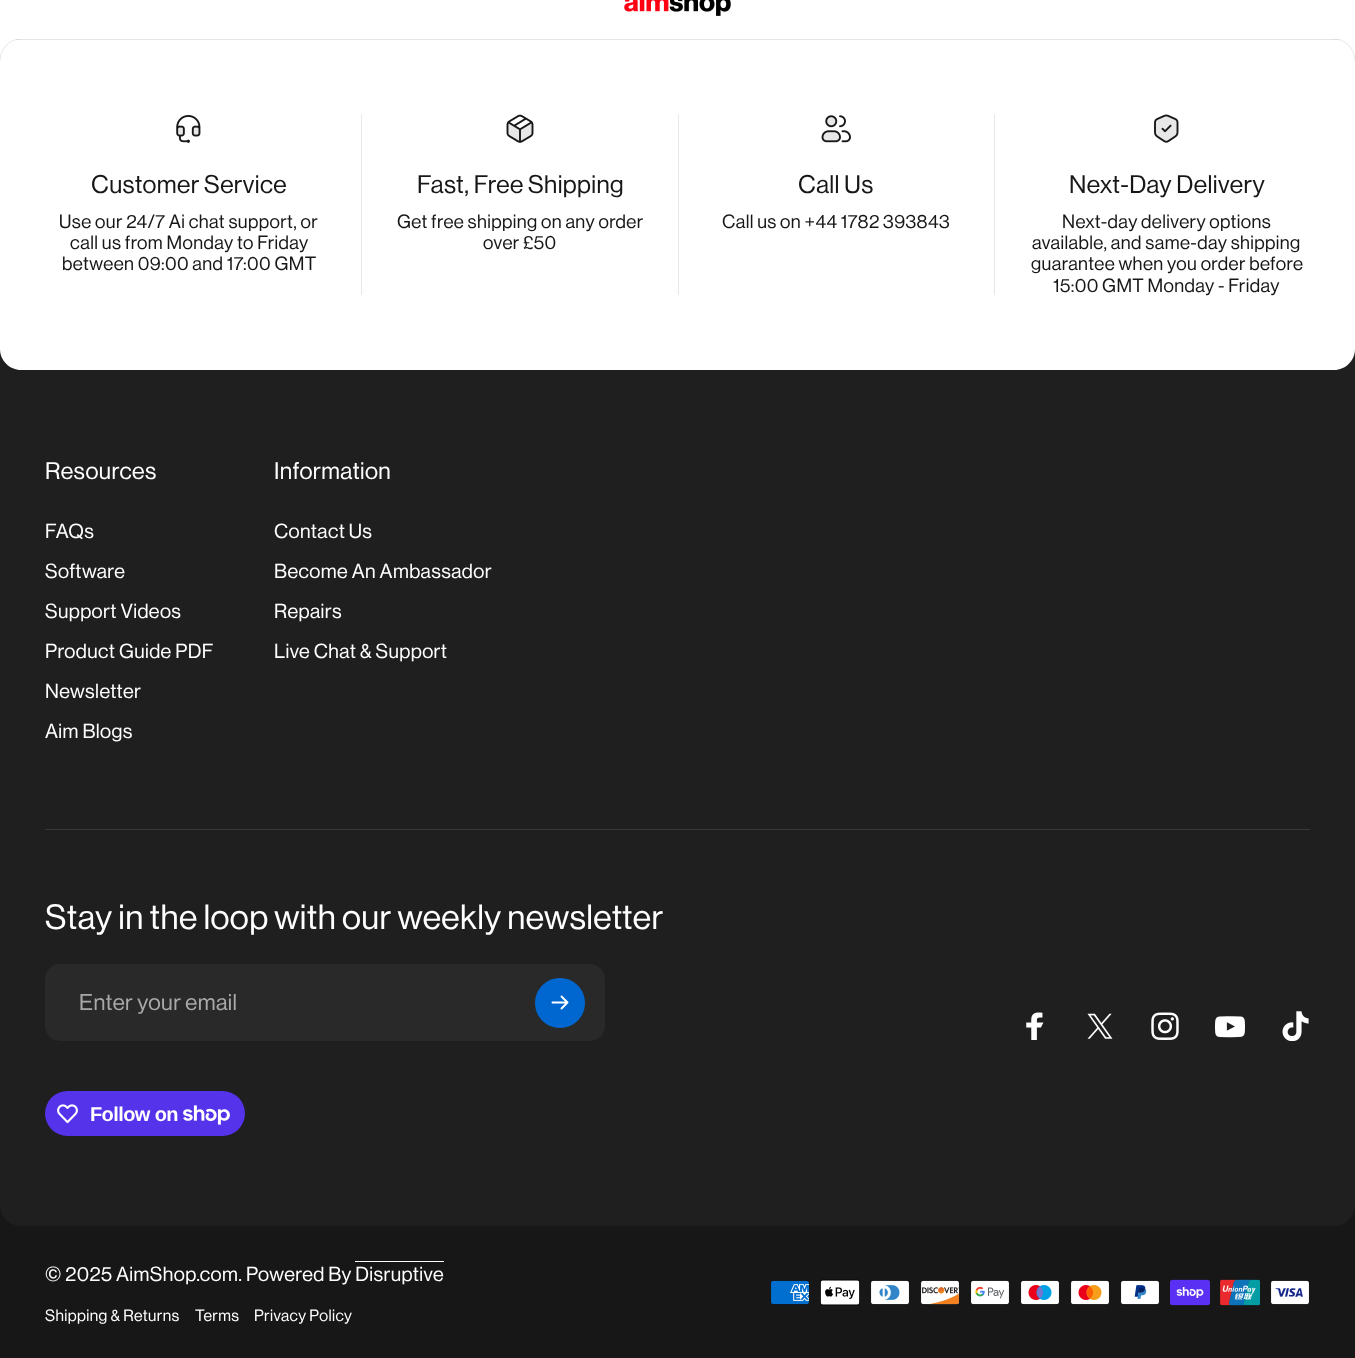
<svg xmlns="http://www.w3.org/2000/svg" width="1355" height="1358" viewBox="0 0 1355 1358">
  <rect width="100%" height="100%" fill="#171717"/>
  <path d="M0 0h1355v39H0z" fill="#fff"/>
  <image x="624" y="0" width="107" height="16" href="img/1.png"/>
  <path d="M0 349H1355V1205C1355 1216.5 1345.5 1226 1334 1226H21C9.5 1226 0 1216.5 0 1205Z" fill="#1f1f1f"/>
  <path d="M0 39H1355V349C1355 360.5 1345.5 370 1334 370H21C9.5 370 0 360.5 0 349Z" fill="#fff"/>
  <path d="M14 39h1341v1H14z" fill="#e5e5e5"/>
  <image x="0" y="39" width="21" height="21" href="img/2.png"/>
  <image x="1334" y="39" width="21" height="21" href="img/3.png"/>
  <image x="176" y="115" width="25" height="28" href="img/4.png"/>
  <path d="M361 114h1v181H361z" fill="#e8e8e8"/>
  <image x="506" y="114" width="28" height="29" href="img/5.png"/>
  <path d="M678 114h1v181H678z" fill="#e8e8e8"/>
  <image x="821" y="115" width="30" height="28" href="img/6.png"/>
  <path d="M994 114h1v181H994z" fill="#e8e8e8"/>
  <image x="1154" y="114" width="25" height="29" href="img/7.png"/>
  <path d="M45 829h1265v1H45z" fill="#393939"/>
  <rect x="45" y="964" width="560" height="77" rx="15" fill="#292929"/>
  <circle cx="560" cy="1003" r="23.5" fill="#0167d0" stroke="#0167d0" stroke-width="3"/>
  <path d="M552.5 1002.5H567.5M567.5 1002.5L561.5 996.5M567.5 1002.5L561.5 1008.5" fill="none" stroke="#fff" stroke-width="1.9" stroke-linecap="round" stroke-linejoin="round"/>
  <image x="1026" y="1012" width="18" height="28" href="img/8.png"/>
  <image x="1087" y="1013" width="26" height="26" href="img/9.png"/>
  <image x="1151" y="1012" width="28" height="28" href="img/10.png"/>
  <image x="1215" y="1016" width="30" height="22" href="img/11.png"/>
  <image x="1282" y="1011" width="27" height="30" href="img/12.png"/>
  <rect x="45" y="1091" width="200" height="45" rx="22.5" fill="#5433eb"/>
  <image x="57" y="1104" width="21" height="20" href="img/13.png"/>
  <image x="183" y="1105" width="47" height="20" href="img/14.png"/>
  <path d="M355 1261h89v1H355z" fill="#fff"/>
  <image x="771" y="1280" width="38" height="25" href="img/15.png"/>
  <image x="820" y="1279" width="40" height="27" href="img/16.png"/>
  <image x="871" y="1280" width="38" height="25" href="img/17.png"/>
  <image x="921" y="1280" width="38" height="25" href="img/18.png"/>
  <image x="971" y="1280" width="38" height="25" href="img/19.png"/>
  <image x="1021" y="1280" width="38" height="25" href="img/20.png"/>
  <image x="1071" y="1280" width="38" height="25" href="img/21.png"/>
  <image x="1121" y="1280" width="38" height="25" href="img/22.png"/>
  <image x="1170" y="1279" width="40" height="27" href="img/23.png"/>
  <image x="1220" y="1279" width="40" height="27" href="img/24.png"/>
  <image x="1271" y="1280" width="38" height="25" href="img/25.png"/>
  <text x="91" y="193" font-family="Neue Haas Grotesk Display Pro" font-size="25" font-weight="500" letter-spacing="0.4" fill="#171717">Customer Service</text>
  <g font-family="Neue Haas Grotesk Display Pro" font-size="18.75" font-weight="500" letter-spacing="0.4" fill="#171717">
    <text x="59" y="228">Use our 24/7 Ai chat support, or</text>
    <text x="70" y="249">call us from Monday to Friday</text>
    <text x="62" y="270">between 09:00 and 17:00 GMT</text>
  </g>
  <text x="417" y="193" font-family="Neue Haas Grotesk Display Pro" font-size="25" font-weight="500" letter-spacing="0.4" fill="#171717">Fast, Free Shipping</text>
  <g font-family="Neue Haas Grotesk Display Pro" font-size="18.75" font-weight="500" letter-spacing="0.4" fill="#171717">
    <text x="397" y="228">Get free shipping on any order</text>
    <text x="483" y="249">over £50</text>
  </g>
  <text x="798" y="193" font-family="Neue Haas Grotesk Display Pro" font-size="25" font-weight="500" letter-spacing="0.4" fill="#171717">Call Us</text>
  <text x="722" y="228" font-family="Neue Haas Grotesk Display Pro" font-size="18.75" font-weight="500" letter-spacing="0.4" fill="#171717">Call us on +44 1782 393843</text>
  <text x="1069" y="193" font-family="Neue Haas Grotesk Display Pro" font-size="25" font-weight="500" letter-spacing="0.4" fill="#171717">Next-Day Delivery</text>
  <g font-family="Neue Haas Grotesk Display Pro" font-size="18.75" font-weight="500" letter-spacing="0.4" fill="#171717">
    <text x="1062" y="228">Next-day delivery options</text>
    <text x="1032" y="249">available, and same-day shipping</text>
    <text x="1031" y="270">guarantee when you order before</text>
    <text x="1053" y="292">15:00 GMT Monday - Friday</text>
  </g>
  <text x="45" y="479" font-family="Neue Haas Grotesk Display Pro" font-size="23.5" font-weight="500" letter-spacing="0.4" fill="#fff">Resources</text>
  <g font-family="Neue Haas Grotesk Display Pro" font-size="20" font-weight="500" letter-spacing="0.4" fill="#fff">
    <text x="45" y="538">FAQs</text>
    <text x="45" y="578">Software</text>
    <text x="45" y="618">Support Videos</text>
    <text x="45" y="658">Product Guide PDF</text>
    <text x="45" y="698">Newsletter</text>
    <text x="45" y="738">Aim Blogs</text>
  </g>
  <text x="274" y="479" font-family="Neue Haas Grotesk Display Pro" font-size="23.5" font-weight="500" letter-spacing="0.4" fill="#fff">Information</text>
  <g font-family="Neue Haas Grotesk Display Pro" font-size="20" font-weight="500" letter-spacing="0.4" fill="#fff">
    <text x="274" y="538">Contact Us</text>
    <text x="274" y="578">Become An Ambassador</text>
    <text x="274" y="618">Repairs</text>
    <text x="274" y="658">Live Chat &amp; Support</text>
  </g>
  <text x="45" y="929" font-family="Neue Haas Grotesk Display Pro" font-size="34.25" font-weight="500" letter-spacing="0.4" fill="#fff">Stay in the loop with our weekly newsletter</text>
  <text x="79" y="1010" font-family="Neue Haas Grotesk Display Pro" font-size="22.5" font-weight="500" letter-spacing="0.4" fill="#a9a9a9">Enter your email</text>
  <text x="90" y="1121" font-family="Liberation Sans" font-size="20" font-weight="bold" letter-spacing="-0.6" fill="#fff">Follow on</text>
  <text x="45" y="1281" font-family="Neue Haas Grotesk Display Pro" font-size="20" font-weight="500" letter-spacing="0.4" fill="#fff">© 2025 AimShop.com. Powered By Disruptive</text>
  <g font-family="Neue Haas Grotesk Display Pro" font-size="16" font-weight="500" letter-spacing="0.4" fill="#fff">
    <text x="45" y="1321">Shipping &amp; Returns</text>
    <text x="195" y="1321">Terms</text>
    <text x="254" y="1321">Privacy Policy</text>
  </g>
</svg>
